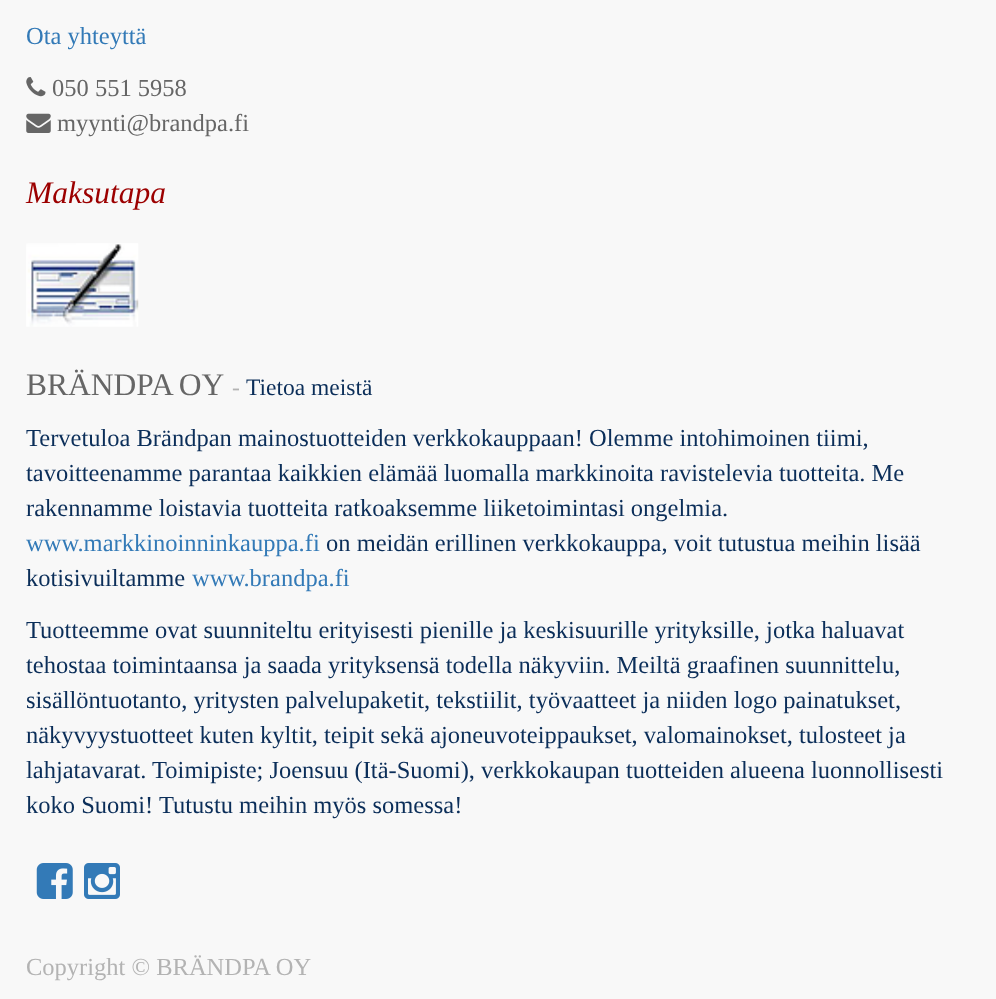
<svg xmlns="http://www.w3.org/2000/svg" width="996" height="999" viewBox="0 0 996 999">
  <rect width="100%" height="100%" fill="#f8f8f8"/>
  <image x="26" y="77" width="20" height="20" href="img/1.png"/>
  <image x="26" y="113" width="25" height="20" href="img/2.png"/>
  <image x="26" y="243" width="113" height="84" href="img/3.png"/>
  <image x="36" y="863" width="37" height="36" href="img/4.png"/>
  <image x="84" y="863" width="36" height="36" href="img/5.png"/>
  <text x="26" y="44" font-family="Liberation Serif" font-size="24.5" fill="#337ab7">Ota yhteyttä</text>
  <g font-family="Liberation Serif" font-size="24.5" fill="#666">
    <text x="52" y="96">050 551 5958</text>
    <text x="57" y="131">myynti@brandpa.fi</text>
  </g>
  <text x="26" y="203" font-family="Liberation Serif" font-size="31.5" font-style="italic" fill="#9c0000">Maksutapa</text>
  <text x="26" y="395" word-spacing="-1" font-family="Liberation Serif" font-size="31.5" fill="#666">BRÄNDPA OY</text>
  <text x="232" y="395" font-family="Liberation Serif" font-size="23.5" fill="#b3b3b3">-</text>
  <text x="246" y="395" font-family="Liberation Serif" font-size="23.5" fill="#0b2e59">Tietoa meistä</text>
  <g font-family="Liberation Serif" font-size="24.5" fill="#0b2e59">
    <text x="26" y="446">Tervetuloa Brändpan mainostuotteiden verkkokauppaan! Olemme intohimoinen tiimi,</text>
    <text x="26" y="481">tavoitteenamme parantaa kaikkien elämää luomalla markkinoita ravistelevia tuotteita. Me</text>
    <text x="26" y="516">rakennamme loistavia tuotteita ratkoaksemme liiketoimintasi ongelmia.</text>
  </g>
  <text x="26" y="551" font-family="Liberation Serif" font-size="24.5" fill="#337ab7">www.markkinoinninkauppa.fi</text>
  <g font-family="Liberation Serif" font-size="24.5" fill="#0b2e59">
    <text x="326" y="551">on meidän erillinen verkkokauppa, voit tutustua meihin lisää</text>
    <text x="26" y="586">kotisivuiltamme</text>
  </g>
  <text x="192" y="586" font-family="Liberation Serif" font-size="24.5" fill="#337ab7">www.brandpa.fi</text>
  <g font-family="Liberation Serif" font-size="24.5" fill="#0b2e59">
    <text x="26" y="638">Tuotteemme ovat suunniteltu erityisesti pienille ja keskisuurille yrityksille, jotka haluavat</text>
    <text x="26" y="673">tehostaa toimintaansa ja saada yrityksensä todella näkyviin. Meiltä graafinen suunnittelu,</text>
    <text x="26" y="708">sisällöntuotanto, yritysten palvelupaketit, tekstiilit, työvaatteet ja niiden logo painatukset,</text>
    <text x="26" y="743">näkyvyystuotteet kuten kyltit, teipit sekä ajoneuvoteippaukset, valomainokset, tulosteet ja</text>
    <text x="26" y="778">lahjatavarat. Toimipiste; Joensuu (Itä-Suomi), verkkokaupan tuotteiden alueena luonnollisesti</text>
    <text x="26" y="813">koko Suomi! Tutustu meihin myös somessa!</text>
  </g>
  <text x="26" y="975" font-family="Liberation Serif" font-size="24.5" fill="#b3b3b3">Copyright © BRÄNDPA OY</text>
</svg>
